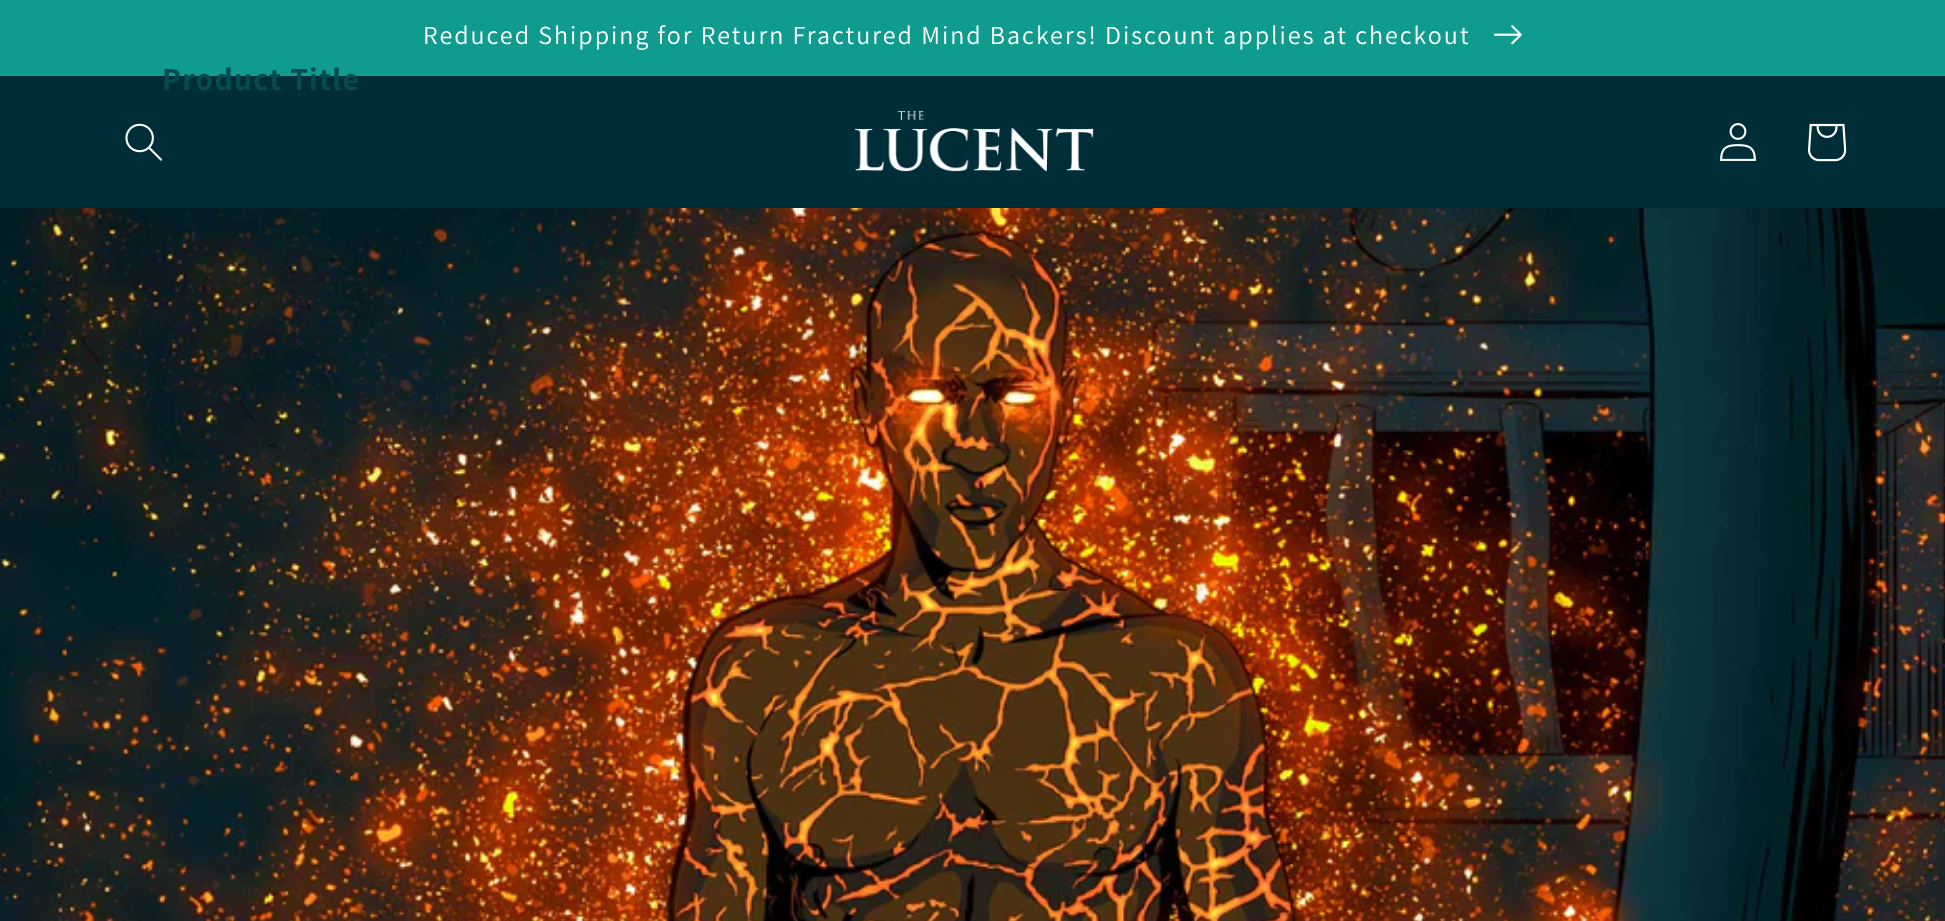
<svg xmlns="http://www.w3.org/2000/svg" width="1945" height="921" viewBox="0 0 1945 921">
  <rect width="100%" height="100%" fill="#fff"/>
  <path d="M0 74h1945v2H0z" fill="#149e92"/>
  <path d="M0 0h1945v74H0z" fill="#0f9c8f"/>
  <image x="1494" y="25" width="28" height="20" href="img/1.png"/>
  <path d="M0 76h1945v132H0z" fill="#002e38"/>
  <image x="125" y="123" width="37" height="38" href="img/2.png"/>
  <image x="855" y="111" width="239" height="61" href="img/3.png"/>
  <image x="1720" y="123" width="36" height="38" href="img/4.png"/>
  <image x="1808" y="123" width="39" height="39" href="img/5.png"/>
  <image x="0" y="208" width="1945" height="713" href="img/6.png"/>
  <text x="423" y="44" font-family="Assistant" font-size="26" letter-spacing="2" fill="#fff">Reduced Shipping for Return Fractured Mind Backers! Discount applies at checkout</text>
  <text x="162" y="90" font-family="Assistant" font-size="32" font-weight="bold" letter-spacing="1.25" fill="#054b4f">Product Title</text>
</svg>
